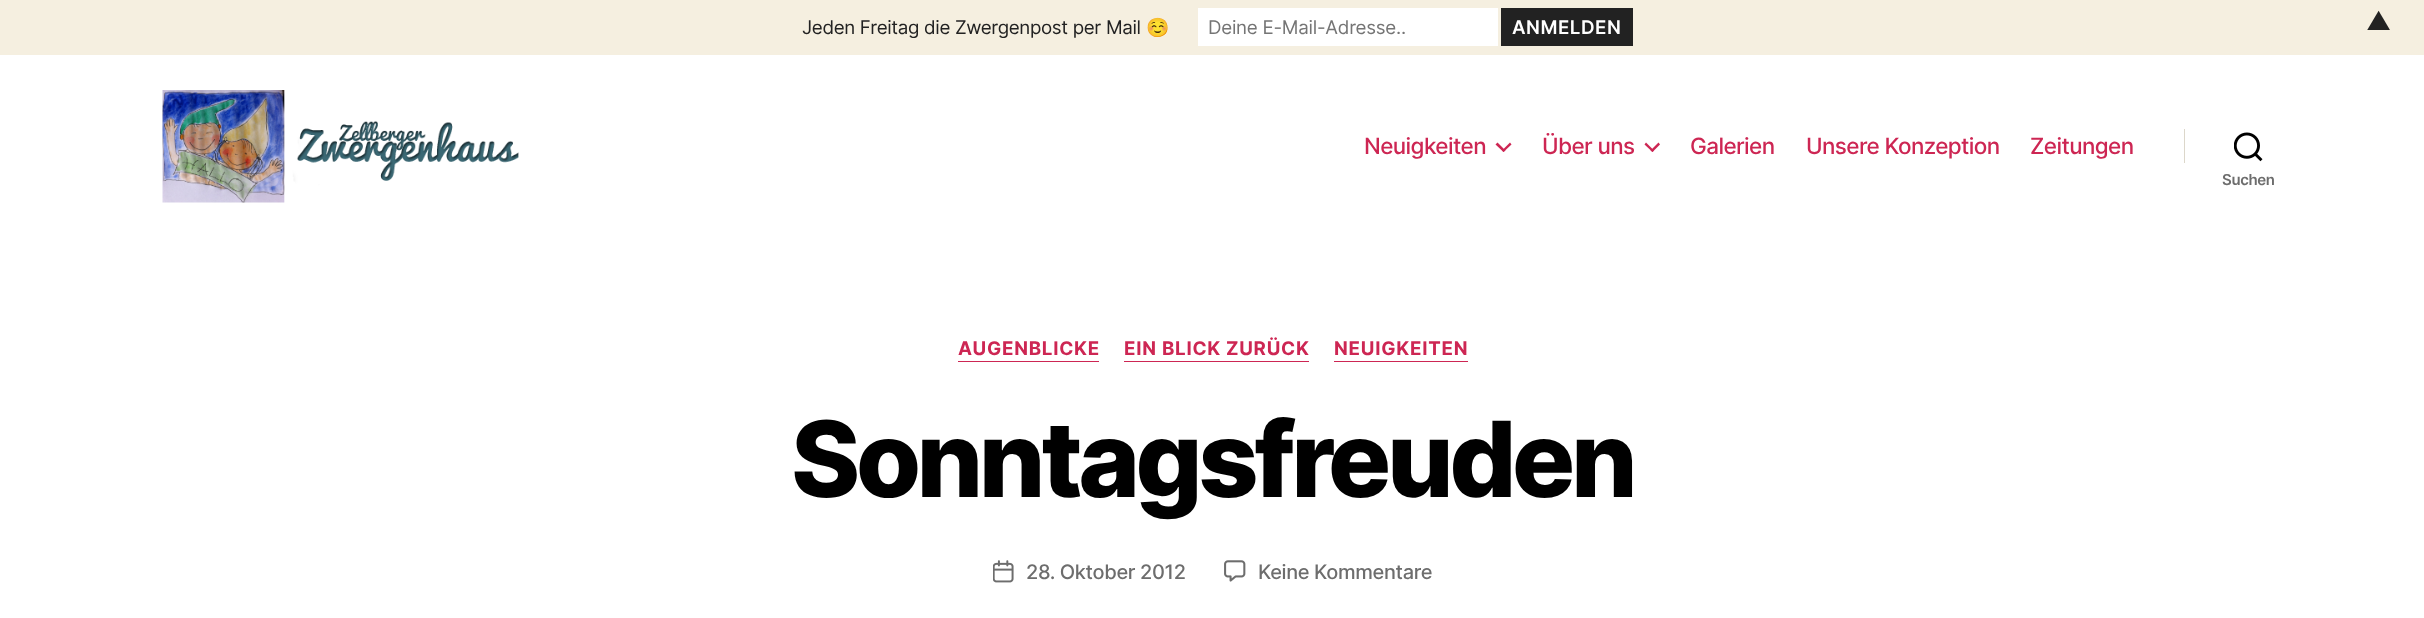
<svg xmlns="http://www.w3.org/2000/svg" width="2424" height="618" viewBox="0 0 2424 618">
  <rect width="100%" height="100%" fill="#f5efe0"/>
  <path d="M1198 8h300v38H1198z" fill="#fff"/>
  <path d="M1501 8h132v38H1501z" fill="#222"/>
  <path d="M0 55h2424v563H0z" fill="#fff"/>
  <image x="162" y="90" width="357" height="113" href="img/1.png"/>
  <path d="M1495.5 144.5L1497.5 142.5L1505.5 150.5L1503.5 152Z" fill="#cd2653"/>
  <path d="M1502 150.5L1510 142.5L1511.5 144.5L1503.5 152Z" fill="#cd2653"/>
  <path d="M1644.5 144.5L1646 142.5L1654 150.5L1652.5 152Z" fill="#cd2653"/>
  <path d="M1650.5 150.5L1658.5 142.5L1660 144.5L1652.5 152Z" fill="#cd2653"/>
  <path d="M2184 129h1v34H2184z" fill="#dcd7ca"/>
  <image x="2234" y="132" width="29" height="30" href="img/2.png"/>
  <path d="M958 361h141v1H958z" fill="#cd2653"/>
  <path d="M1124 361h185v1H1124z" fill="#cd2653"/>
  <path d="M1334 361h134v1H1334z" fill="#cd2653"/>
  <image x="993" y="560" width="21" height="23" href="img/3.png"/>
  <image x="1224" y="560" width="22" height="22" href="img/4.png"/>
  <text x="802" y="34" font-family="Inter" font-size="18.75" letter-spacing="-0.35" fill="#222">Jeden Freitag die Zwergenpost per Mail</text>
  <text x="1146" y="34" font-family="Noto Color Emoji" font-size="18.75" letter-spacing="-0.35" fill="#222">☺️</text>
  <text x="1208" y="34" font-family="Inter" font-size="18.75" letter-spacing="-0.25" fill="#757575">Deine E-Mail-Adresse..</text>
  <text x="1512" y="34" font-family="Inter" font-size="18.75" font-weight="600" letter-spacing="0.5" fill="#fff">ANMELDEN</text>
  <text x="2366" y="30" font-family="Inter" font-size="25" letter-spacing="-0.35" fill="#222">▲</text>
  <g font-family="Inter" font-size="22.5" font-weight="500" letter-spacing="-0.6" fill="#cd2653">
    <text x="1364" y="154">Neuigkeiten</text>
    <text x="1542" y="154">Über uns</text>
    <text x="1690" y="154">Galerien</text>
    <text x="1806" y="154">Unsere Konzeption</text>
    <text x="2030" y="154">Zeitungen</text>
  </g>
  <text x="2222" y="185" font-family="Inter" font-size="15" font-weight="600" letter-spacing="-0.35" fill="#6d6d6d">Suchen</text>
  <g font-family="Inter" font-size="18.75" font-weight="bold" letter-spacing="0.75" fill="#cd2653">
    <text x="958" y="355">AUGENBLICKE</text>
    <text x="1124" y="355">EIN BLICK ZURÜCK</text>
    <text x="1334" y="355">NEUIGKEITEN</text>
  </g>
  <text x="791" y="497" font-family="Inter" font-size="105" font-weight="800" letter-spacing="-4.4" fill="#000">Sonntagsfreuden</text>
  <g font-family="Inter" font-size="20" font-weight="500" letter-spacing="-0.35" fill="#6d6d6d">
    <text x="1026" y="579">28. Oktober 2012</text>
    <text x="1258" y="579">Keine Kommentare</text>
  </g>
</svg>
